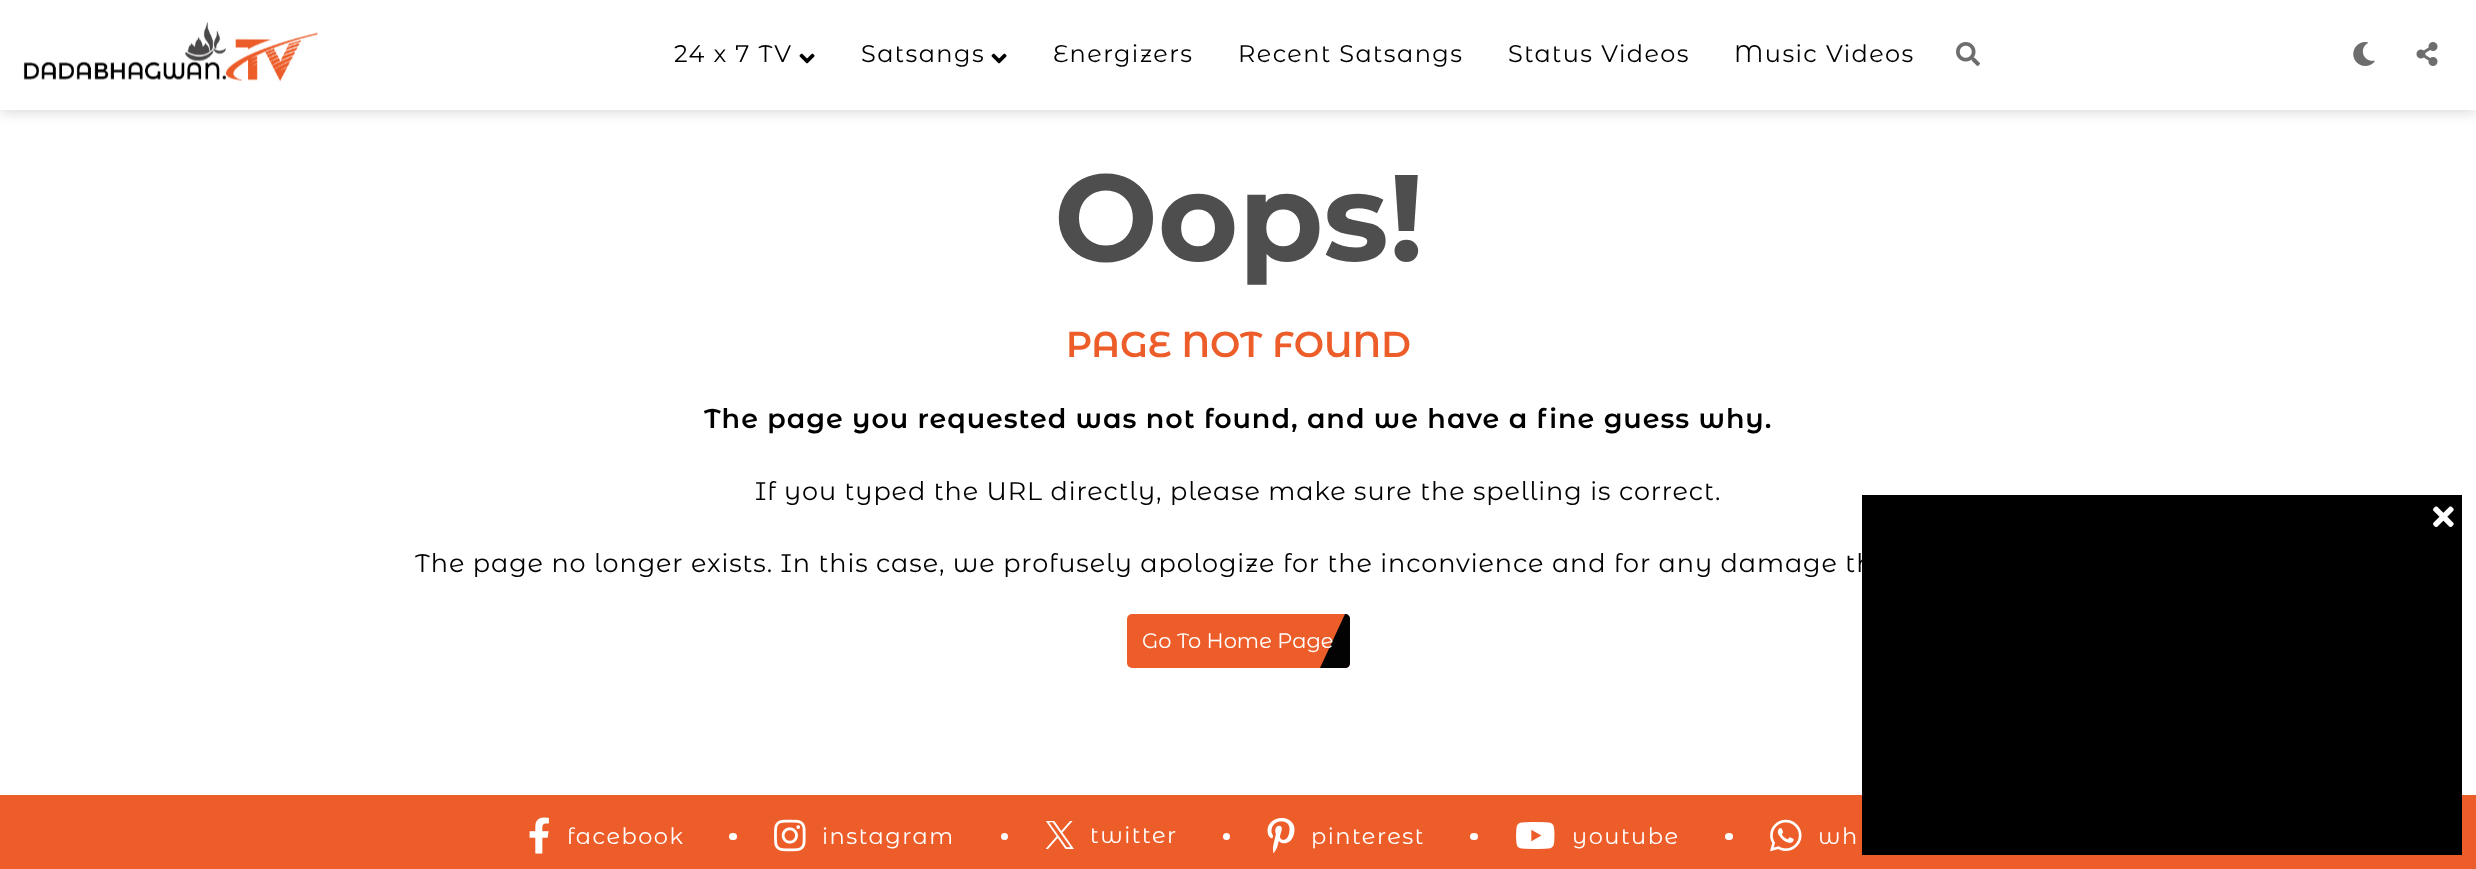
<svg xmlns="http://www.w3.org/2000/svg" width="2476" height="869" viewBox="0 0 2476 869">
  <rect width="100%" height="100%" fill="#fff"/>
  <path d="M0 0h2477v110H0z" fill="#00000033" filter="blur(7.5px)"/>
  <path d="M0 0h2476v110H0z" fill="#fff"/>
  <image x="23" y="22" width="295" height="60" href="img/1.png"/>
  <image x="799" y="53" width="16" height="11" href="img/2.png"/>
  <image x="991" y="53" width="16" height="11" href="img/2.png"/>
  <image x="1956" y="42" width="24" height="24" href="img/3.png"/>
  <image x="2353" y="42" width="22" height="24" href="img/4.png"/>
  <image x="2416" y="42" width="22" height="24" href="img/5.png"/>
  <rect x="1127" y="614" width="223" height="54" rx="5" fill="#ed5d29"/>
  <path d="M1345 614L1320 668H1345C1348 668 1350 666 1350 663V619C1350 616 1348 614 1345 614Z" fill="#030303"/>
  <path d="M0 795h2476v74H0z" fill="#ed5d29"/>
  <path d="M1862 495h600v360H1862z" fill="#000"/>
  <image x="2433" y="506" width="21" height="21" href="img/6.png"/>
  <image x="529" y="817" width="20" height="37" href="img/7.png"/>
  <rect x="729" y="833" width="8" height="7" rx="3.5" fill="#fff"/>
  <image x="774" y="819" width="32" height="33" href="img/8.png"/>
  <circle cx="1004.5" cy="836.5" r="3.5" fill="#fff"/>
  <image x="1046" y="821" width="28" height="28" href="img/9.png"/>
  <circle cx="1226.5" cy="836.5" r="3.5" fill="#fff"/>
  <image x="1267" y="817" width="28" height="36" href="img/10.png"/>
  <rect x="1470" y="833" width="8" height="7" rx="3.5" fill="#fff"/>
  <image x="1516" y="822" width="39" height="27" href="img/11.png"/>
  <rect x="1725" y="833" width="8" height="7" rx="3.5" fill="#fff"/>
  <image x="1770" y="819" width="32" height="33" href="img/12.png"/>
  <g font-family="Montserrat Alternates" font-size="24" letter-spacing="1.4" fill="#000">
    <text x="674" y="62">24 x 7 TV</text>
    <text x="861" y="62">Satsangs</text>
    <text x="1053" y="62">Energizers</text>
    <text x="1238" y="62">Recent Satsangs</text>
    <text x="1508" y="62">Status Videos</text>
    <text x="1734" y="62">Music Videos</text>
  </g>
  <text x="1054" y="261" font-family="Montserrat Alternates" font-size="123" font-weight="bold" fill="#4e4e4e">Oops!</text>
  <text x="1066" y="357" font-family="Montserrat Alternates" font-size="36" font-weight="600" fill="#ed5d29">PAGE NOT FOUND</text>
  <text x="704" y="428" font-family="Montserrat Alternates" font-size="27" font-weight="600" letter-spacing="0.95" fill="#000">The page you requested was not found, and we have a fine guess why.</text>
  <g font-family="Montserrat Alternates" font-size="25.5" letter-spacing="0.89" fill="#000">
    <text x="755" y="500">If you typed the URL directly, please make sure the spelling is correct.</text>
    <text x="415" y="572">The page no longer exists. In this case, we profusely apologize for the inconvience and for any damage th</text>
  </g>
  <text x="1142" y="648" font-family="Montserrat Alternates" font-size="21" fill="#fff">Go To Home Page</text>
  <g font-family="Montserrat Alternates" font-size="22.5" letter-spacing="1.5" fill="#fff">
    <text x="567" y="844">facebook</text>
    <text x="822" y="844">instagram</text>
    <text x="1090" y="843">twitter</text>
    <text x="1311" y="844">pinterest</text>
    <text x="1572" y="844">youtube</text>
    <text x="1818" y="844">wh</text>
  </g>
</svg>
